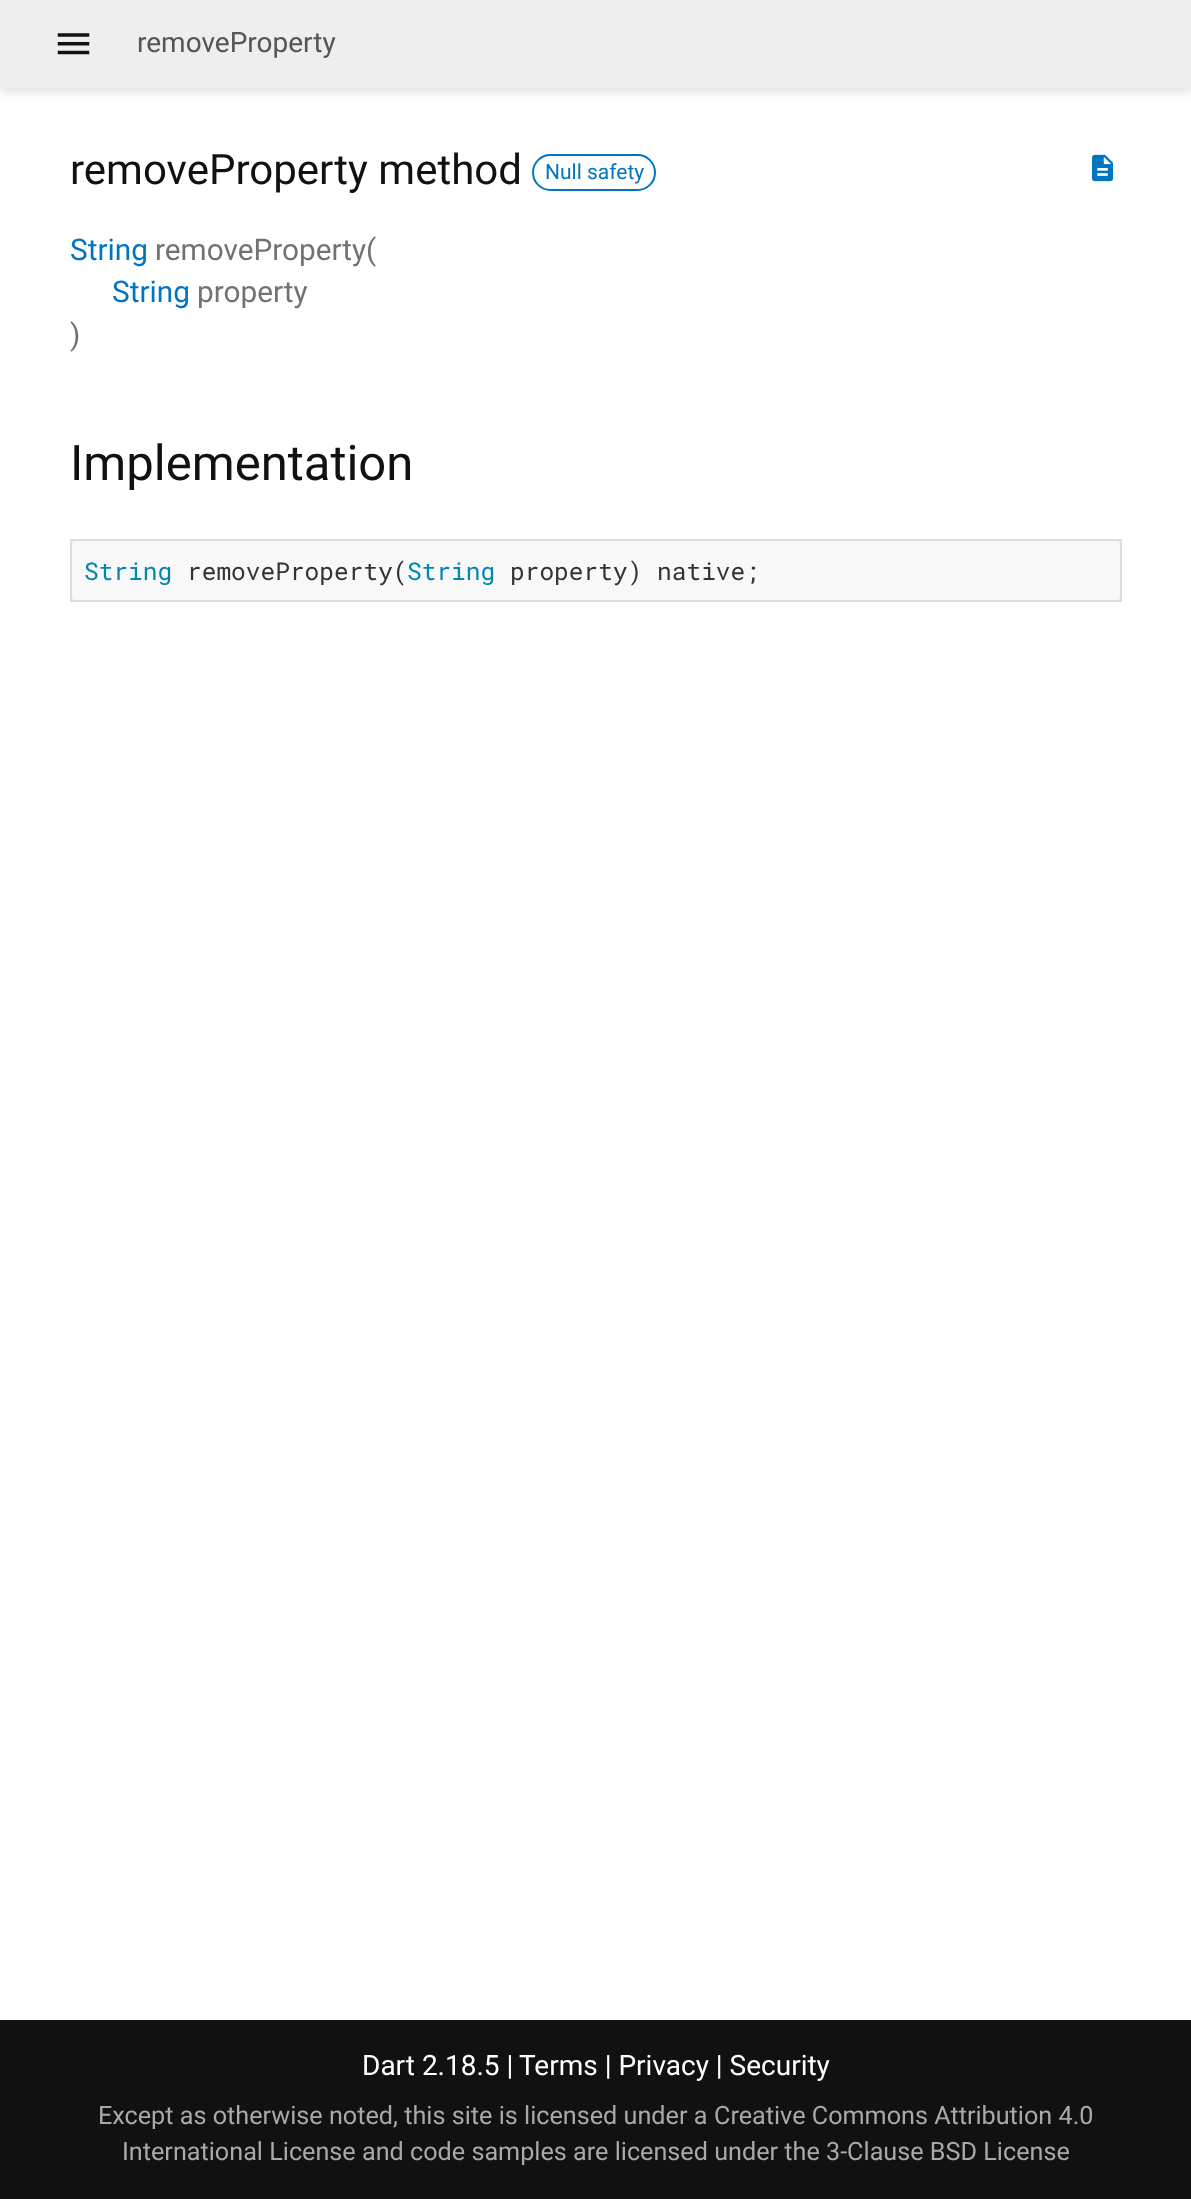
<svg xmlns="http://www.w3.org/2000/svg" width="1191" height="2199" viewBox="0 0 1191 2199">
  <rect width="100%" height="100%" fill="#fff"/>
  <path d="M0 5h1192v88H0z" fill="#0000001a" filter="blur(4.5px)"/>
  <path d="M0 0h1191v88H0z" fill="#eee"/>
  <image x="57" y="33" width="33" height="22" href="img/1.png"/>
  <rect x="533" y="155" width="122" height="35" rx="17.5" fill="none" stroke="#0175c2" stroke-width="2"/>
  <image x="1092" y="154" width="21" height="28" href="img/2.png"/>
  <path d="M71 540h1050v61H71z" fill="#eee" stroke="#ddd" stroke-width="2"/>
  <rect x="72" y="541" width="1048" height="59" rx="5" fill="#f8f8f8"/>
  <path d="M0 2020h1191v179H0z" fill="#111"/>
  <text x="137" y="52" font-family="Roboto" font-size="28" fill="#555">removeProperty</text>
  <text x="70" y="184" font-family="Roboto" font-size="42" fill="#111">removeProperty method</text>
  <text x="545" y="179" font-family="Roboto" font-size="21" fill="#0175c2">Null safety</text>
  <text x="70" y="260" font-family="Roboto" font-size="29.75" fill="#0175c2">String</text>
  <text x="155" y="260" font-family="Roboto" font-size="29.75" fill="#727272">removeProperty(</text>
  <text x="112" y="302" font-family="Roboto" font-size="29.75" fill="#0175c2">String</text>
  <g font-family="Roboto" font-size="29.75" fill="#727272">
    <text x="197" y="302">property</text>
    <text x="70" y="345">)</text>
  </g>
  <text x="70" y="480" font-family="Roboto" font-size="49" fill="#111">Implementation</text>
  <text x="84" y="580" font-family="Roboto Mono" font-size="24.5" fill="#0086b3">String</text>
  <text x="187" y="580" font-family="Roboto Mono" font-size="24.5" fill="#333">removeProperty(</text>
  <text x="407" y="580" font-family="Roboto Mono" font-size="24.5" fill="#0086b3">String</text>
  <text x="510" y="580" font-family="Roboto Mono" font-size="24.5" fill="#333">property) native;</text>
  <text x="519" y="2075" font-family="Roboto" font-size="28" fill="#fff">Terms | Privacy | Security</text>
  <g font-family="Roboto" font-size="25.2" fill="#a9a9a9">
    <text x="98" y="2124">Except as otherwise noted, this site is licensed under a</text>
    <text x="714" y="2124">Creative Commons Attribution 4.0</text>
    <text x="122" y="2160">International License and code samples are licensed under the 3-Clause BSD License</text>
  </g>
  <text x="362" y="2075" font-family="Roboto" font-size="28" fill="#fff">Dart 2.18.5 |</text>
</svg>
